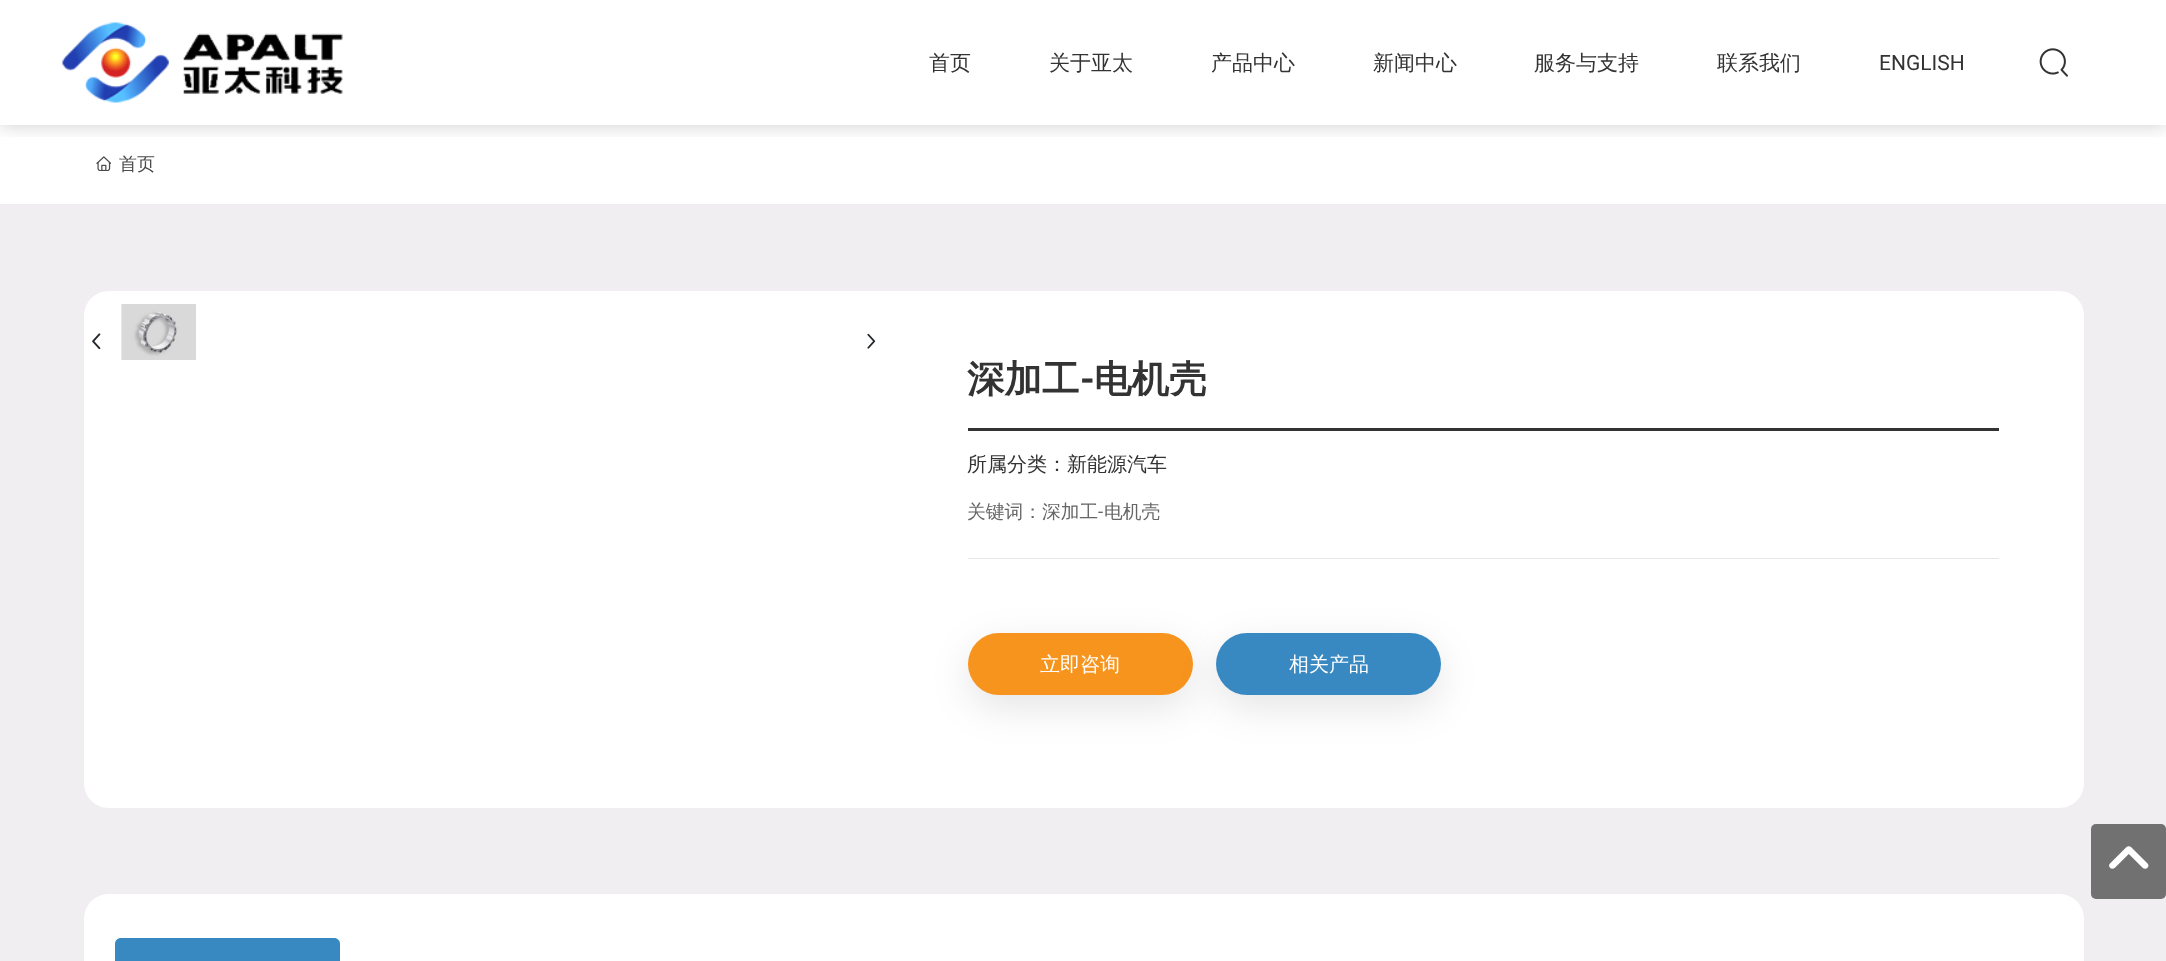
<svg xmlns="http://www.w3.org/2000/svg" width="2166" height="961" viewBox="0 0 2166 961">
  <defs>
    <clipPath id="clip1"><path d="M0 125h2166v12H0z"/></clipPath>
  </defs>
  <rect width="100%" height="100%" fill="#fff"/>
  <g clip-path="url(#clip1)">
    <path d="M0 0h2166v125H0z" fill="#00000033" filter="blur(9.5px)"/>
  </g>
  <image x="62" y="22" width="281" height="81" href="img/1.png"/>
  <image x="2039" y="48" width="29" height="29" href="img/2.png"/>
  <image x="96" y="156" width="15" height="15" href="img/3.png"/>
  <path d="M0 204h2166v757H0z" fill="#f1eef1"/>
  <path d="M109 291H884V808H109C95 808 84 797 84 783V316C84 302 95 291 109 291Z" fill="#fff"/>
  <image x="121" y="304" width="75" height="56" href="img/4.png"/>
  <image x="92" y="333" width="9" height="17" href="img/5.png"/>
  <image x="867" y="333" width="9" height="16" href="img/6.png"/>
  <path d="M884 291H2059C2073 291 2084 302 2084 316V783C2084 797 2073 808 2059 808H884Z" fill="#fff"/>
  <path d="M968 428h1031v3H968z" fill="#333"/>
  <path d="M968 558h1031v1H968z" fill="#e6e6e6"/>
  <rect x="968" y="645" width="225" height="63" rx="31.5" fill="#0000001a" filter="blur(19px)"/>
  <rect x="968" y="633" width="225" height="62" rx="31" fill="#f7941d"/>
  <rect x="1216" y="645" width="225" height="63" rx="31.5" fill="#0000001a" filter="blur(19px)"/>
  <rect x="1216" y="633" width="225" height="62" rx="31" fill="#3889c1"/>
  <path d="M109 894H2059C2073 894 2084 905 2084 919V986H84V919C84 905 95 894 109 894Z" fill="#fff"/>
  <path d="M121 938H334C337.5 938 340 940.5 340 944V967H115V944C115 940.5 117.5 938 121 938Z" fill="#3889c1"/>
  <rect x="2091" y="824" width="75" height="75" rx="5" fill="#717171"/>
  <image x="2109" y="846" width="40" height="23" href="img/7.png"/>
  <g font-family="WenQuanYi Zen Hei" font-size="21" font-weight="500" fill="#333">
    <text x="929" y="70">首页</text>
    <text x="1049" y="70">关于亚太</text>
    <text x="1211" y="70">产品中心</text>
    <text x="1373" y="70">新闻中心</text>
    <text x="1534" y="70">服务与支持</text>
    <text x="1717" y="70">联系我们</text>
  </g>
  <text x="1879" y="70" font-family="Roboto" font-size="21" fill="#333">ENGLISH</text>
  <text x="119" y="170" font-family="WenQuanYi Zen Hei" font-size="18" font-weight="500" fill="#4a4a4a">首页</text>
  <text x="967" y="392" font-family="WenQuanYi Zen Hei" font-size="37.5" font-weight="bold" fill="#333">深加工</text>
  <text x="1080" y="392" font-family="Roboto" font-size="37.5" font-weight="bold" fill="#333">-</text>
  <text x="1094" y="392" font-family="WenQuanYi Zen Hei" font-size="37.5" font-weight="bold" fill="#333">电机壳</text>
  <text x="967" y="471" font-family="WenQuanYi Zen Hei" font-size="20" font-weight="500" fill="#333">所属分类：新能源汽车</text>
  <text x="967" y="518" font-family="WenQuanYi Zen Hei" font-size="18.75" font-weight="500" fill="#666">关键词：深加工</text>
  <text x="1098" y="518" font-family="Roboto" font-size="18.75" fill="#666">-</text>
  <text x="1104" y="518" font-family="WenQuanYi Zen Hei" font-size="18.75" font-weight="500" fill="#666">电机壳</text>
  <g font-family="WenQuanYi Zen Hei" font-size="20" font-weight="500" fill="#fff">
    <text x="1040" y="671">立即咨询</text>
    <text x="1289" y="671">相关产品</text>
  </g>
</svg>
